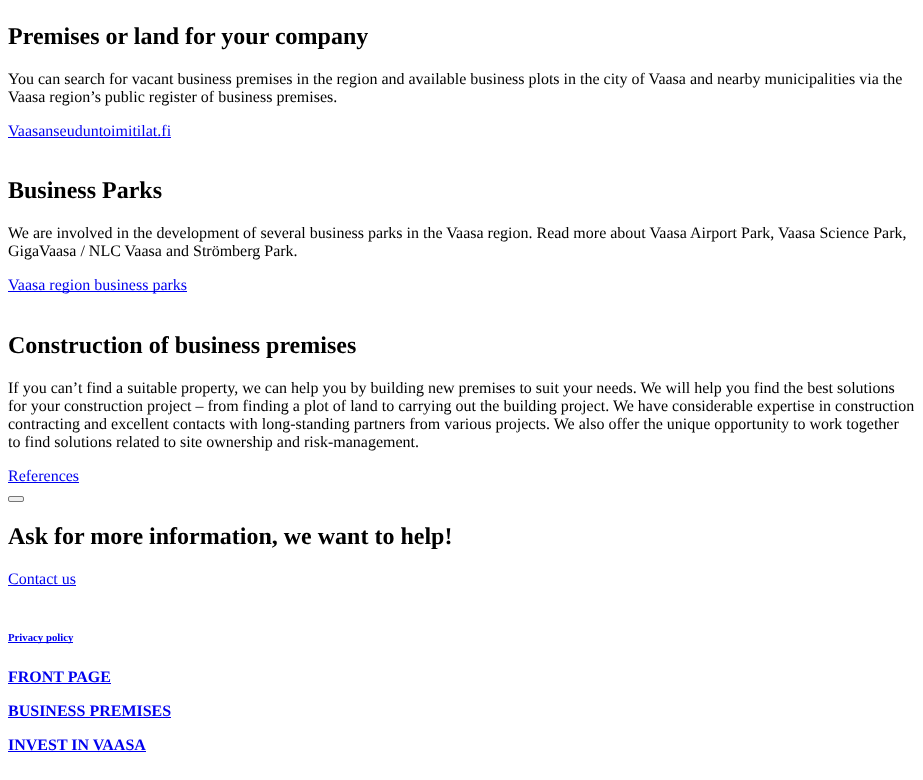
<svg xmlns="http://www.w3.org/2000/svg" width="923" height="780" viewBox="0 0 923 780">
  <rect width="100%" height="100%" fill="#fff"/>
  <path d="M8 137h163v1H8z" fill="#00e"/>
  <path d="M8 291h179v1H8z" fill="#00e"/>
  <path d="M8 482h71v1H8z" fill="#00e"/>
  <rect x="8.5" y="496.5" width="15" height="5" rx="1.5" fill="#efefef" stroke="#767676"/>
  <path d="M8 585h68v1H8z" fill="#00e"/>
  <path d="M8 642h65v1H8z" fill="#00e"/>
  <path d="M8 683h103v1H8z" fill="#00e"/>
  <path d="M8 717h163v1H8z" fill="#00e"/>
  <path d="M8 751h138v1H8z" fill="#00e"/>
  <text x="8" y="44" font-family="Liberation Serif" font-size="24" font-weight="bold" fill="#000">Premises or land for your company</text>
  <g font-family="Liberation Serif" font-size="16" fill="#000">
    <text x="8" y="84">You can search for vacant business premises in the region and available business plots in the city of Vaasa and nearby municipalities via the</text>
    <text x="8" y="102">Vaasa region’s public register of business premises.</text>
  </g>
  <text x="8" y="136" font-family="Liberation Serif" font-size="16" fill="#00e">Vaasanseuduntoimitilat.fi</text>
  <text x="8" y="198" font-family="Liberation Serif" font-size="24" font-weight="bold" fill="#000">Business Parks</text>
  <g font-family="Liberation Serif" font-size="16" fill="#000">
    <text x="8" y="238">We are involved in the development of several business parks in the Vaasa region. Read more about Vaasa Airport Park, Vaasa Science Park,</text>
    <text x="8" y="256">GigaVaasa / NLC Vaasa and Strömberg Park.</text>
  </g>
  <text x="8" y="290" font-family="Liberation Serif" font-size="16" fill="#00e">Vaasa region business parks</text>
  <text x="8" y="353" font-family="Liberation Serif" font-size="24" font-weight="bold" fill="#000">Construction of business premises</text>
  <g font-family="Liberation Serif" font-size="16" fill="#000">
    <text x="8" y="393">If you can’t find a suitable property, we can help you by building new premises to suit your needs. We will help you find the best solutions</text>
    <text x="8" y="411">for your construction project – from finding a plot of land to carrying out the building project. We have considerable expertise in construction</text>
    <text x="8" y="429">contracting and excellent contacts with long-standing partners from various projects. We also offer the unique opportunity to work together</text>
    <text x="8" y="447">to find solutions related to site ownership and risk-management.</text>
  </g>
  <text x="8" y="481" font-family="Liberation Serif" font-size="16" fill="#00e">References</text>
  <text x="8" y="544" font-family="Liberation Serif" font-size="24" font-weight="bold" fill="#000">Ask for more information, we want to help!</text>
  <text x="8" y="584" font-family="Liberation Serif" font-size="16" fill="#00e">Contact us</text>
  <text x="8" y="641" font-family="Liberation Serif" font-size="10.75" font-weight="bold" fill="#00e">Privacy policy</text>
  <g font-family="Liberation Serif" font-size="16" font-weight="bold" fill="#00e">
    <text x="8" y="682">FRONT PAGE</text>
    <text x="8" y="716">BUSINESS PREMISES</text>
    <text x="8" y="750">INVEST IN VAASA</text>
  </g>
</svg>
